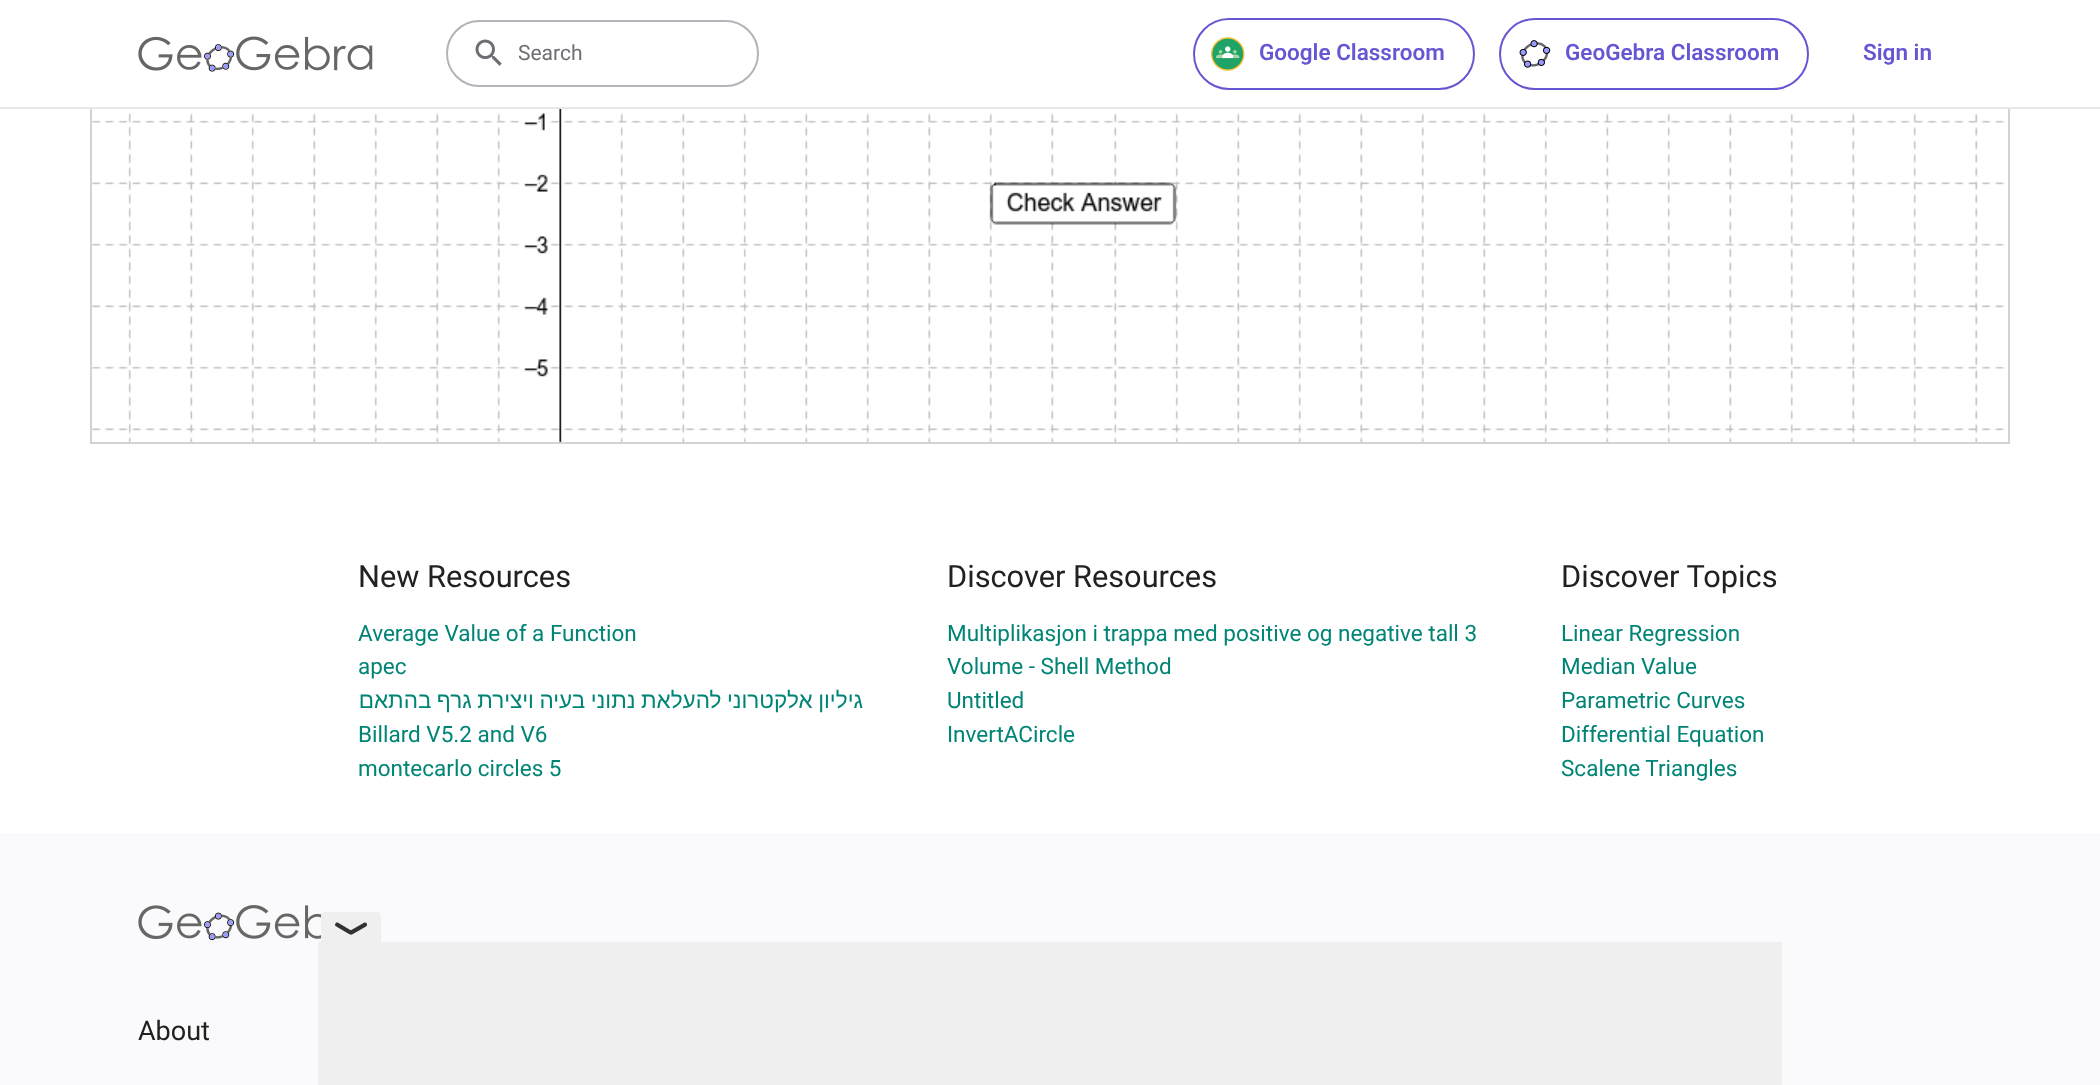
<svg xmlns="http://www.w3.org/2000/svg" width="2100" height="1085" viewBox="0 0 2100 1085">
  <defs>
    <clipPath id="clip1"><path d="M359 684h504v35H359z"/></clipPath>
  </defs>
  <rect width="100%" height="100%" fill="#fff"/>
  <image x="92" y="109" width="1916" height="333" href="img/5.png"/>
  <path d="M91 -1h1918v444H91z" fill="none" stroke="#d3d3d3" stroke-width="2"/>
  <path d="M90 0h1920v107H90z" fill="#fff"/>
  <path d="M0 107h2100v2H0z" fill="#e6e6eb"/>
  <image x="138" y="36" width="235" height="36" href="img/1.png"/>
  <rect x="447" y="21" width="311" height="65" rx="32.5" fill="none" stroke="#b4b3ba" stroke-width="2"/>
  <image x="475" y="39" width="27" height="27" href="img/2.png"/>
  <rect x="1194" y="19" width="280" height="70" rx="35" fill="none" stroke="#6557d2" stroke-width="2"/>
  <image x="1211" y="37" width="34" height="34" href="img/3.png"/>
  <rect x="1500" y="19" width="308" height="70" rx="35" fill="none" stroke="#6557d2" stroke-width="2"/>
  <image x="1519" y="40" width="32" height="28" href="img/4.png"/>
  <path d="M0 833h2100v252H0z" fill="#fafafc"/>
  <image x="138" y="905" width="184" height="36" href="img/6.png"/>
  <path d="M324 912H378C379.5 912 381 913.5 381 915V942H321V915C321 913.5 322.5 912 324 912Z" fill="#efefef"/>
  <path d="M338.5 923L352 931C353.5 933 351.5 935.5 349 934L335.5 926C334 924 336.5 921.5 338.5 923Z" fill="#313131"/>
  <path d="M350.5 930.5L364.5 922.5C367 922 368 925.5 366 926.5L352 934.5C349.5 935 348.5 931.5 350.5 930.5Z" fill="#313131"/>
  <path d="M318 942h1464v143H318z" fill="#efefef"/>
  <text x="518" y="60" font-family="Roboto" font-size="21" fill="#6e6d73">Search</text>
  <g font-family="Roboto" font-size="22.5" font-weight="600" fill="#6557d2">
    <text x="1259" y="60">Google Classroom</text>
    <text x="1565" y="60">GeoGebra Classroom</text>
    <text x="1863" y="60">Sign in</text>
  </g>
  <text x="358" y="587" font-family="Roboto" font-size="30.75" fill="#212121">New Resources</text>
  <g font-family="Roboto" font-size="22.5" fill="#008475">
    <text x="358" y="641">Average Value of a Function</text>
    <text x="358" y="674">apec</text>
  </g>
  <g clip-path="url(#clip1)">
    <text x="863" y="708" word-spacing="-0.75" font-family="Liberation Sans" font-size="22.5" direction="rtl" fill="#008475">גיליון אלקטרוני להעלאת נתוני בעיה ויצירת גרף בהתאם</text>
  </g>
  <g font-family="Roboto" font-size="22.5" fill="#008475">
    <text x="358" y="742">Billard V5.2 and V6</text>
    <text x="358" y="776">montecarlo circles 5</text>
  </g>
  <text x="947" y="587" font-family="Roboto" font-size="30.75" fill="#212121">Discover Resources</text>
  <g font-family="Roboto" font-size="22.5" fill="#008475">
    <text x="947" y="641">Multiplikasjon i trappa med positive og negative tall 3</text>
    <text x="947" y="674">Volume - Shell Method</text>
    <text x="947" y="708">Untitled</text>
    <text x="947" y="742">InvertACircle</text>
  </g>
  <text x="1561" y="587" font-family="Roboto" font-size="30.75" fill="#212121">Discover Topics</text>
  <g font-family="Roboto" font-size="22.5" fill="#008475">
    <text x="1561" y="641">Linear Regression</text>
    <text x="1561" y="674">Median Value</text>
    <text x="1561" y="708">Parametric Curves</text>
    <text x="1561" y="742">Differential Equation</text>
    <text x="1561" y="776">Scalene Triangles</text>
  </g>
  <text x="138" y="1040" font-family="Roboto" font-size="27" fill="#212121">About</text>
</svg>
